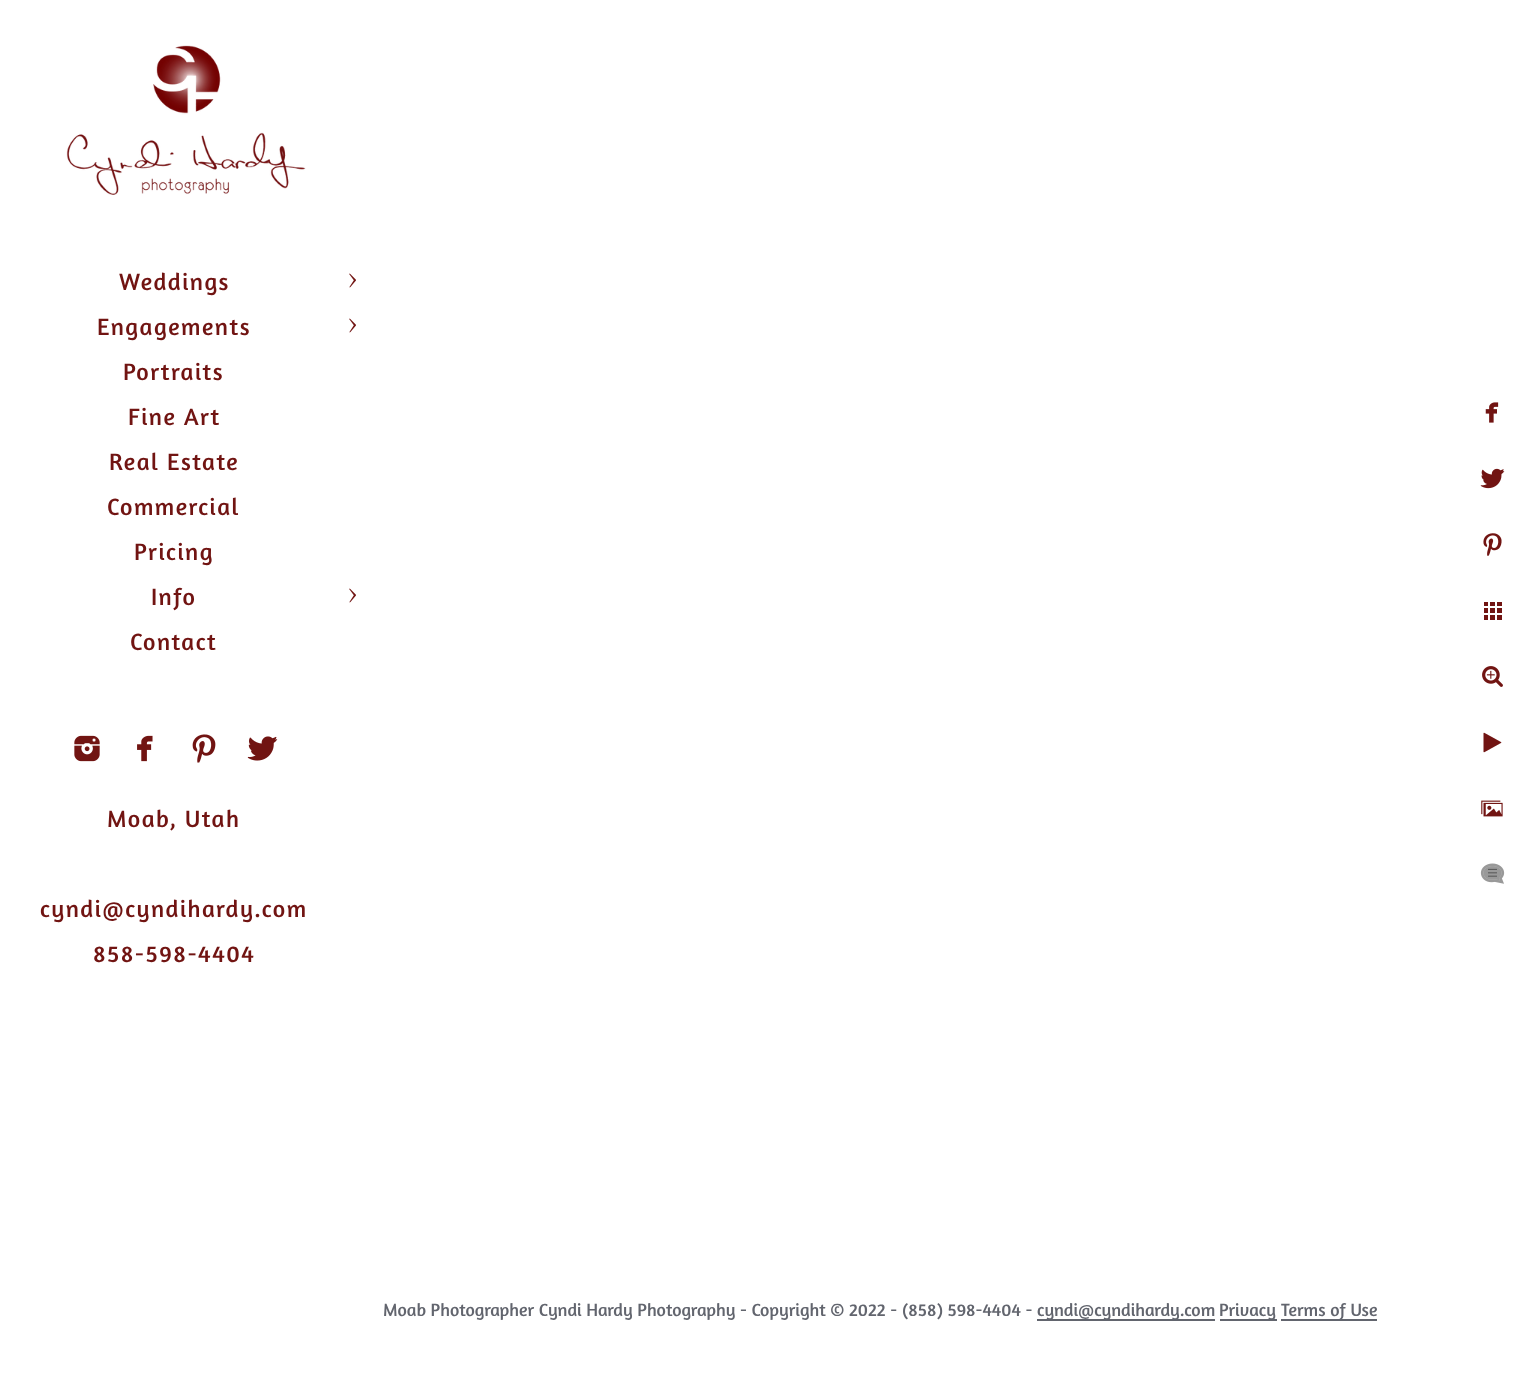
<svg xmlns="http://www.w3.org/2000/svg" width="1533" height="1399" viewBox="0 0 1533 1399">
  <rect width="100%" height="100%" fill="#fff"/>
  <image x="66" y="45" width="240" height="150" href="img/1.png"/>
  <image x="349" y="273" width="7" height="15" href="img/2.png"/>
  <image x="349" y="318" width="7" height="15" href="img/2.png"/>
  <image x="349" y="588" width="7" height="15" href="img/2.png"/>
  <image x="74" y="735" width="26" height="27" href="img/3.png"/>
  <image x="137" y="735" width="16" height="27" href="img/4.png"/>
  <image x="192" y="734" width="24" height="29" href="img/5.png"/>
  <image x="247" y="736" width="31" height="25" href="img/6.png"/>
  <image x="1485" y="402" width="14" height="21" href="img/7.png"/>
  <image x="1480" y="468" width="25" height="21" href="img/8.png"/>
  <image x="1483" y="533" width="19" height="23" href="img/9.png"/>
  <image x="1484" y="602" width="18" height="18" href="img/10.png"/>
  <image x="1482" y="666" width="21" height="21" href="img/11.png"/>
  <image x="1483" y="732" width="19" height="21" href="img/12.png"/>
  <image x="1481" y="800" width="22" height="17" href="img/13.png"/>
  <image x="1480" y="863" width="25" height="21" href="img/14.png"/>
  <path d="M1037 1319h178v2H1037z" fill="#62656e"/>
  <path d="M1220 1319h57v2H1220z" fill="#62656e"/>
  <path d="M1281 1319h96v2H1281z" fill="#62656e"/>
  <g font-family="Amaranth" font-size="24" letter-spacing="1.5" fill="#711412">
    <text x="119" y="290">Weddings</text>
    <text x="97" y="335">Engagements</text>
    <text x="123" y="380">Portraits</text>
    <text x="128" y="425">Fine Art</text>
    <text x="109" y="470">Real Estate</text>
    <text x="107" y="515">Commercial</text>
    <text x="134" y="560">Pricing</text>
    <text x="151" y="605">Info</text>
    <text x="130" y="650">Contact</text>
    <text x="107" y="827">Moab, Utah</text>
    <text x="40" y="917">cyndi@cyndihardy.com</text>
    <text x="93" y="962">858-598-4404</text>
  </g>
  <g font-family="Amaranth" font-size="18" fill="#62656e">
    <text x="383" y="1316">Moab Photographer Cyndi Hardy Photography - Copyright © 2022 - (858) 598-4404 -</text>
    <text x="1037" y="1316">cyndi@cyndihardy.com</text>
    <text x="1219" y="1316">Privacy</text>
    <text x="1281" y="1316">Terms of Use</text>
  </g>
</svg>
